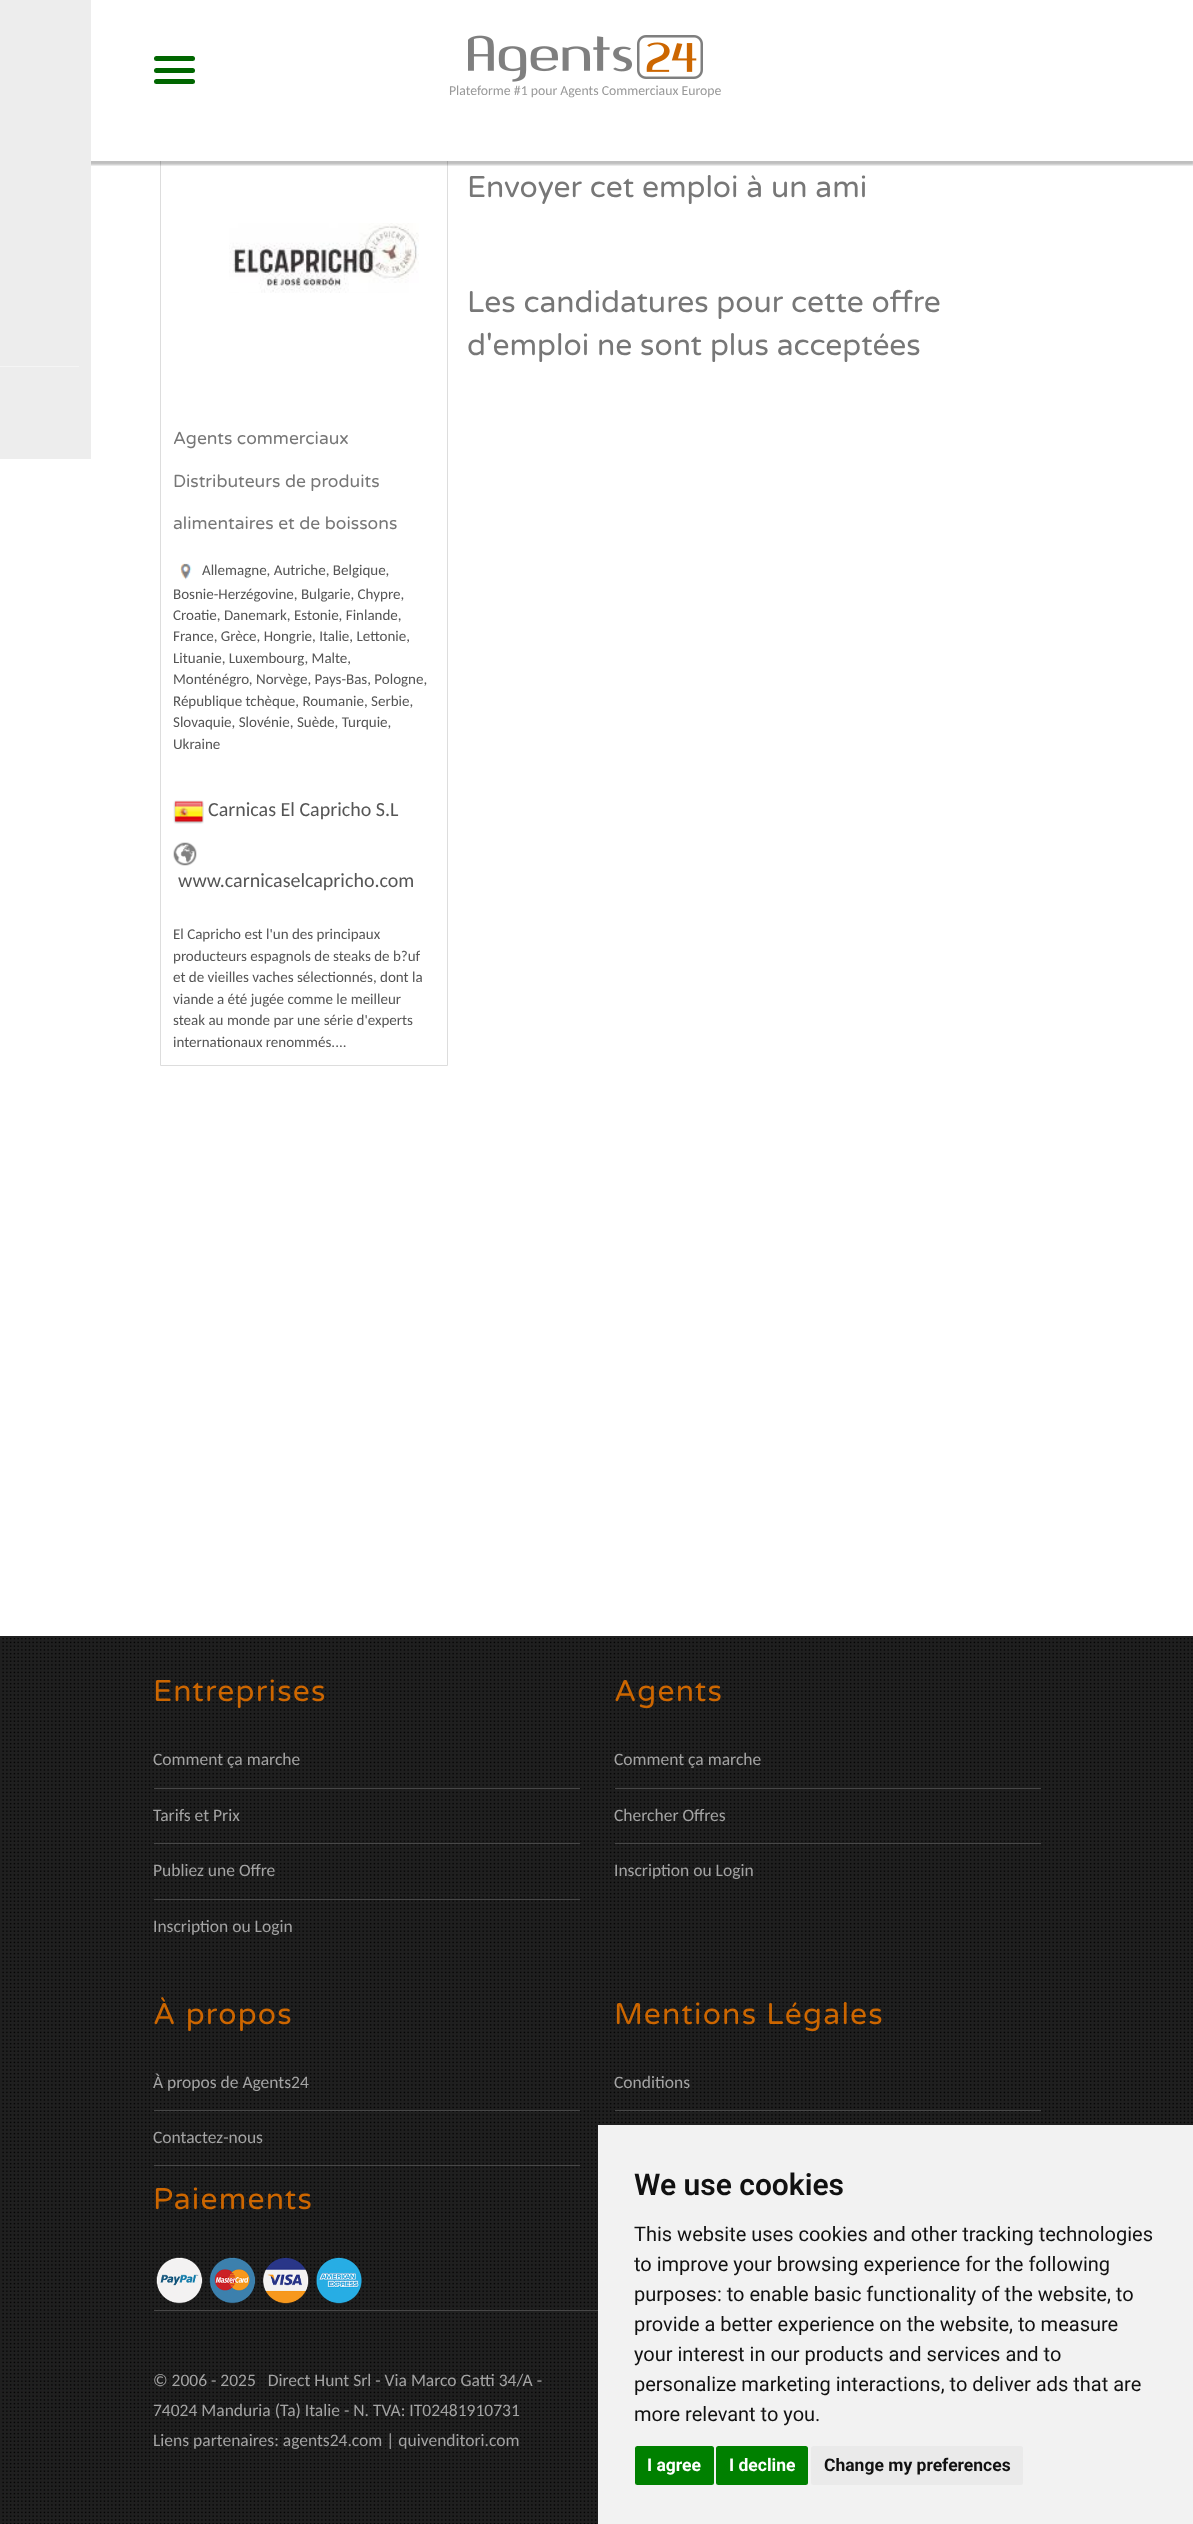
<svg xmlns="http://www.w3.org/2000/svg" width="1193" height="2524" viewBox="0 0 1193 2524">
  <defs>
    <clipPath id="clip1"><path d="M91 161h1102v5H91z"/></clipPath>
  </defs>
  <rect width="100%" height="100%" fill="#fff"/>
  <path d="M160.5 129.5h287v936H160.5z" fill="none" stroke="#ddd"/>
  <path d="M160 129h288v32H160z" fill="#fff"/>
  <g clip-path="url(#clip1)">
    <path d="M0 4h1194v161H0z" fill="#00000040" filter="blur(1px)"/>
  </g>
  <path d="M0 0h91v459H0z" fill="#ededed"/>
  <path d="M0 366h79v1H0z" fill="#f5f5f5"/>
  <rect x="154" y="56" width="41" height="5" rx="2.5" fill="#060"/>
  <rect x="154" y="68" width="41" height="5" rx="2.5" fill="#060"/>
  <rect x="154" y="79" width="41" height="5" rx="2.5" fill="#060"/>
  <image x="468" y="35" width="235" height="47" href="img/1.png"/>
  <image x="229" y="223" width="190" height="70" href="img/2.png"/>
  <image x="180" y="563" width="12" height="17" href="img/3.png"/>
  <image x="173" y="800" width="31" height="24" href="img/4.png"/>
  <image x="173" y="842" width="24" height="24" href="img/5.png"/>
  <path d="M0 1636h1193v888H0z" fill="#1f1f1f"/>
  <image x="2" y="1638" width="1191" height="886" href="img/6.png"/>
  <path d="M154 1788h426v1H154z" fill="#474747"/>
  <path d="M154 1843h426v1H154z" fill="#474747"/>
  <path d="M154 1899h426v1H154z" fill="#474747"/>
  <path d="M615 1788h426v1H615z" fill="#474747"/>
  <path d="M615 1843h426v1H615z" fill="#474747"/>
  <path d="M154 2110h426v1H154z" fill="#474747"/>
  <path d="M154 2165h426v1H154z" fill="#474747"/>
  <image x="156" y="2257" width="206" height="47" href="img/7.png"/>
  <path d="M615 2110h426v1H615z" fill="#474747"/>
  <path d="M154 2310h444v1H154z" fill="#474747"/>
  <path d="M598 2125h595v399H598z" fill="#f2f2f2"/>
  <rect x="635" y="2446" width="79" height="39" rx="2.5" fill="#008000"/>
  <rect x="716" y="2446" width="92" height="39" rx="2.5" fill="#008000"/>
  <rect x="811" y="2446" width="212" height="39" rx="2.5" fill="#eaeaea"/>
  <text x="449" y="95" font-family="Carlito" font-size="13.75" fill="#999">Plateforme #1 pour Agents Commerciaux Europe</text>
  <g font-family="Varela Round" font-size="30" fill="#777">
    <text x="467" y="197">Envoyer cet emploi à un ami</text>
    <text x="467" y="312">Les candidatures pour cette offre</text>
    <text x="467" y="355">d'emploi ne sont plus acceptées</text>
  </g>
  <g font-family="Varela Round" font-size="17.5" fill="#777">
    <text x="173" y="444">Agents commerciaux</text>
    <text x="173" y="487">Distributeurs de produits</text>
    <text x="173" y="529">alimentaires et de boissons</text>
  </g>
  <g font-family="Carlito" font-size="15" fill="#555">
    <text x="202" y="575">Allemagne, Autriche, Belgique,</text>
    <text x="173" y="599">Bosnie-Herzégovine, Bulgarie, Chypre,</text>
    <text x="173" y="620">Croatie, Danemark, Estonie, Finlande,</text>
    <text x="173" y="641">France, Grèce, Hongrie, Italie, Lettonie,</text>
    <text x="173" y="663">Lituanie, Luxembourg, Malte,</text>
    <text x="173" y="684">Monténégro, Norvège, Pays-Bas, Pologne,</text>
    <text x="173" y="706">République tchèque, Roumanie, Serbie,</text>
    <text x="173" y="727">Slovaquie, Slovénie, Suède, Turquie,</text>
    <text x="173" y="749">Ukraine</text>
  </g>
  <g font-family="Carlito" font-size="20" fill="#555">
    <text x="208" y="816">Carnicas El Capricho S.L</text>
    <text x="178" y="887">www.carnicaselcapricho.com</text>
  </g>
  <g font-family="Carlito" font-size="15" fill="#555">
    <text x="173" y="939">El Capricho est l'un des principaux</text>
    <text x="173" y="961">producteurs espagnols de steaks de b?uf</text>
    <text x="173" y="982">et de vieilles vaches sélectionnés, dont la</text>
    <text x="173" y="1004">viande a été jugée comme le meilleur</text>
    <text x="173" y="1025">steak au monde par une série d'experts</text>
    <text x="173" y="1047">internationaux renommés....</text>
  </g>
  <text x="153" y="1701" font-family="Varela Round" font-size="30" letter-spacing="1.25" fill="#c60">Entreprises</text>
  <g font-family="Carlito" font-size="17.5" fill="#a3a3a3">
    <text x="153" y="1765">Comment ça marche</text>
    <text x="153" y="1821">Tarifs et Prix</text>
    <text x="153" y="1876">Publiez une Offre</text>
    <text x="153" y="1932">Inscription ou Login</text>
  </g>
  <text x="614" y="1701" font-family="Varela Round" font-size="30" letter-spacing="1.25" fill="#c60">Agents</text>
  <g font-family="Carlito" font-size="17.5" fill="#a3a3a3">
    <text x="614" y="1765">Comment ça marche</text>
    <text x="614" y="1821">Chercher Offres</text>
    <text x="614" y="1876">Inscription ou Login</text>
  </g>
  <text x="153" y="2024" font-family="Varela Round" font-size="30" letter-spacing="1.25" fill="#c60">À propos</text>
  <g font-family="Carlito" font-size="17.5" fill="#a3a3a3">
    <text x="153" y="2088">À propos de Agents24</text>
    <text x="153" y="2143">Contactez-nous</text>
  </g>
  <g font-family="Varela Round" font-size="30" letter-spacing="1.25" fill="#c60">
    <text x="153" y="2209">Paiements</text>
    <text x="614" y="2024">Mentions Légales</text>
  </g>
  <g font-family="Carlito" font-size="17.5" fill="#a3a3a3">
    <text x="614" y="2088">Conditions</text>
    <text x="153" y="2386" xml:space="preserve">© 2006 - 2025   Direct Hunt Srl - Via Marco Gatti 34/A -</text>
    <text x="153" y="2416">74024 Manduria (Ta) Italie - N. TVA: IT02481910731</text>
    <text x="153" y="2446">Liens partenaires: agents24.com | quivenditori.com</text>
  </g>
  <text x="634" y="2195" font-family="Roboto" font-size="30" font-weight="600" fill="#111">We use cookies</text>
  <g font-family="Roboto" font-size="20" fill="#111">
    <text x="634" y="2241">This website uses cookies and other tracking technologies</text>
    <text x="634" y="2271">to improve your browsing experience for the following</text>
    <text x="634" y="2301">purposes: to enable basic functionality of the website, to</text>
    <text x="634" y="2331">provide a better experience on the website, to measure</text>
    <text x="634" y="2361">your interest in our products and services and to</text>
    <text x="634" y="2391">personalize marketing interactions, to deliver ads that are</text>
    <text x="634" y="2421">more relevant to you.</text>
  </g>
  <g font-family="Roboto" font-size="17.5" font-weight="bold" fill="#fff">
    <text x="647" y="2471">I agree</text>
    <text x="729" y="2471">I decline</text>
  </g>
  <text x="824" y="2471" font-family="Roboto" font-size="17.5" font-weight="bold" fill="#111">Change my preferences</text>
</svg>
